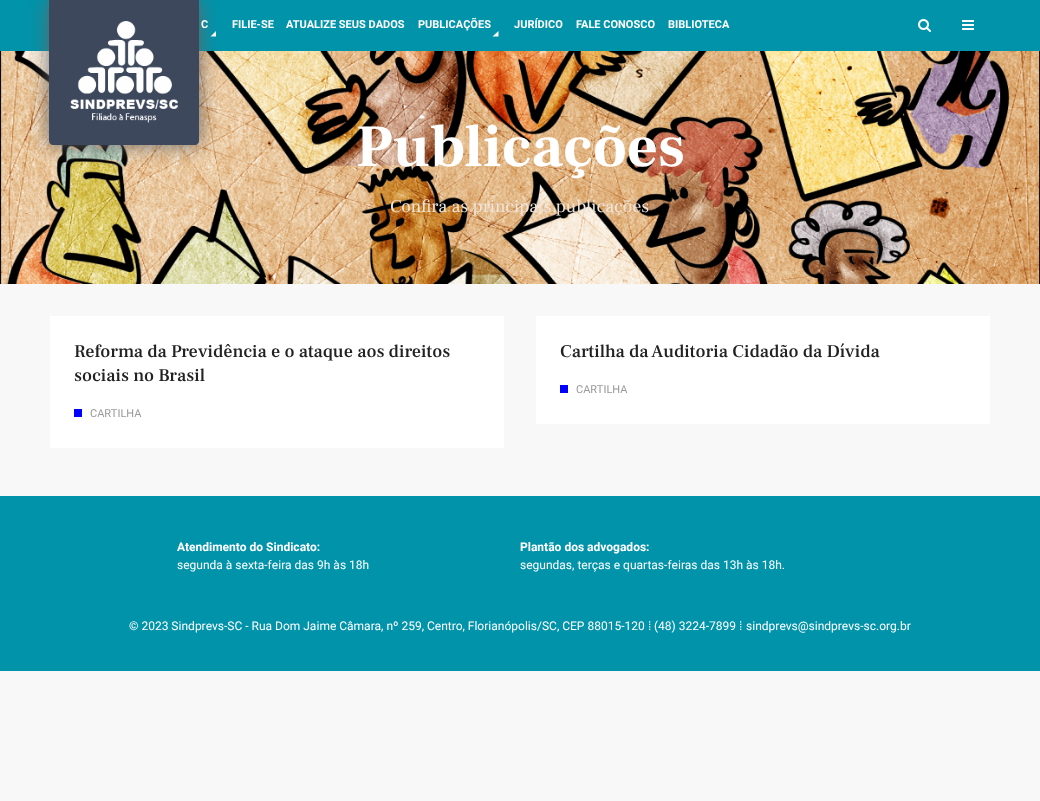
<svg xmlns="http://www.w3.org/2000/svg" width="1040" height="801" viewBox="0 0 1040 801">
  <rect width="100%" height="100%" fill="#f8f8f8"/>
  <path d="M0 0h1040v51H0z" fill="#0093aa"/>
  <path d="M210.5 36.5L216 31V36.5Z" fill="#fff"/>
  <image x="0" y="51" width="1040" height="233" href="img/4.png"/>
  <rect x="49" width="150" height="145" rx="4" fill="#666" filter="blur(10px)"/>
  <path d="M49 0H199V141C199 143 197 145 195 145H53C51 145 49 143 49 141Z" fill="#3d485c"/>
  <image x="70" y="21" width="108" height="102" href="img/1.png"/>
  <path d="M492.5 36.5L498.5 31V36.5Z" fill="#fff"/>
  <image x="918" y="19" width="13" height="13" href="img/2.png"/>
  <image x="962" y="20" width="12" height="10" href="img/3.png"/>
  <path d="M50 316h454v132H50z" fill="#fff"/>
  <path d="M74 409h8v8H74z" fill="#00f"/>
  <path d="M536 316h454v108H536z" fill="#fff"/>
  <path d="M560 385h8v8H560z" fill="#00f"/>
  <path d="M0 496h1040v175H0z" fill="#0093aa"/>
  <g font-family="Heebo" font-size="11" font-weight="bold" fill="#fff">
    <text x="201" y="28">C</text>
    <text x="232" y="28">FILIE-SE</text>
    <text x="286" y="28">ATUALIZE SEUS DADOS</text>
    <text x="418" y="28">PUBLICAÇÕES</text>
    <text x="514" y="28">JURÍDICO</text>
    <text x="576" y="28">FALE CONOSCO</text>
    <text x="668" y="28">BIBLIOTECA</text>
  </g>
  <text x="356" y="166" font-family="Frank Ruhl Libre" font-size="60" font-weight="bold" fill="#fff">Publicações</text>
  <text x="390" y="212" font-family="Frank Ruhl Libre" font-size="18" fill="#ede5dd">Confira as principais publicações</text>
  <g font-family="Frank Ruhl Libre" font-size="18" font-weight="500" fill="#222">
    <text x="74" y="357">Reforma da Previdência e o ataque aos direitos</text>
    <text x="74" y="381">sociais no Brasil</text>
  </g>
  <text x="90" y="417" font-family="Heebo" font-size="11" fill="#999">CARTILHA</text>
  <text x="560" y="357" font-family="Frank Ruhl Libre" font-size="18" font-weight="500" fill="#222">Cartilha da Auditoria Cidadão da Dívida</text>
  <text x="576" y="393" font-family="Heebo" font-size="11" fill="#999">CARTILHA</text>
  <text x="177" y="551" font-family="Heebo" font-size="12" font-weight="bold" fill="#fff">Atendimento do Sindicato:</text>
  <text x="177" y="569" font-family="Heebo" font-size="12" fill="#fff">segunda à sexta-feira das 9h às 18h</text>
  <text x="520" y="551" font-family="Heebo" font-size="12" font-weight="bold" fill="#fff">Plantão dos advogados:</text>
  <g font-family="Heebo" font-size="12" fill="#fff">
    <text x="520" y="569">segundas, terças e quartas-feiras das 13h às 18h.</text>
    <text x="129" y="630">© 2023 Sindprevs-SC - Rua Dom Jaime Câmara, nº 259, Centro, Florianópolis/SC, CEP 88015-120</text>
  </g>
  <text x="648" y="630" font-family="Liberation Sans" font-size="12" fill="#fff">⁞</text>
  <text x="654" y="630" font-family="Heebo" font-size="12" fill="#fff">(48) 3224-7899</text>
  <text x="739" y="630" font-family="Liberation Sans" font-size="12" fill="#fff">⁞</text>
  <text x="746" y="630" font-family="Heebo" font-size="12" fill="#fff">sindprevs@sindprevs-sc.org.br</text>
</svg>
